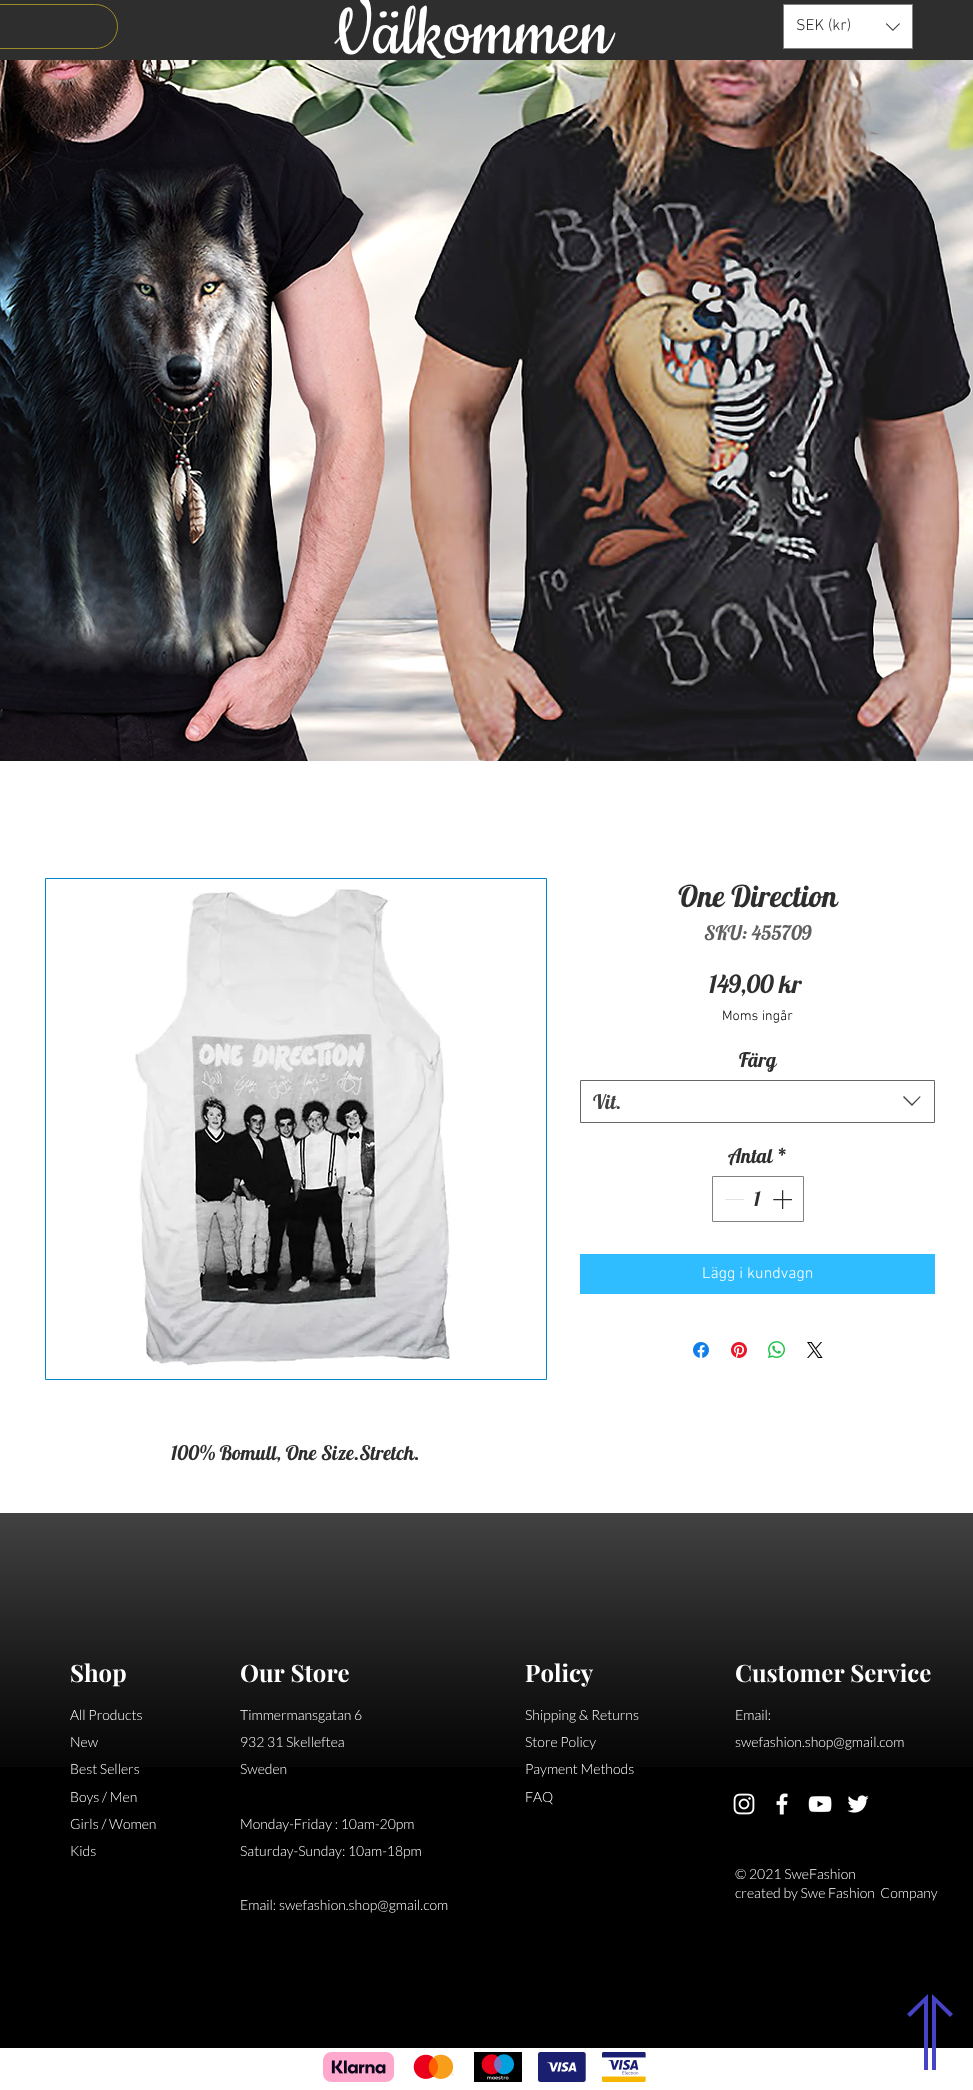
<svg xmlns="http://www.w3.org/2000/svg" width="973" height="2090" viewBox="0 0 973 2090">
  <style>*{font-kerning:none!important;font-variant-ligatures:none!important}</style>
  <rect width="100%" height="100%" fill="#fff"/>
  <path d="M0 0h973v60H0z" fill="#2f2e2e"/>
  <rect x="-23.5" y="4.5" width="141" height="44" rx="22" fill="none" stroke="#9e8c28"/>
  <path d="M783.5 4.5h129v44H783.5z" fill="#fff" stroke="#828282"/>
  <image x="885" y="23" width="15" height="8" href="img/1.png"/>
  <image x="0" y="60" width="973" height="701" href="img/2.png"/>
  <path d="M580.5 1080.5h354v42H580.5z" fill="none" stroke="#666"/>
  <path d="M920 1096L920.5 1097L912 1106L903 1097L904 1096L912 1104Z" fill="#444" fill-rule="evenodd"/>
  <path d="M712.5 1176.5h91v45H712.5z" fill="none" stroke="#828282"/>
  <path d="M725 1199h19v1H725z" fill="#e3e3e3"/>
  <image x="773" y="1190" width="19" height="19" href="img/3.png"/>
  <path d="M580 1254h355v40H580z" fill="#30bdff"/>
  <image x="693" y="1342" width="16" height="16" href="img/4.png"/>
  <image x="731" y="1342" width="16" height="16" href="img/5.png"/>
  <image x="768" y="1341" width="17" height="17" href="img/6.png"/>
  <image x="807" y="1342" width="16" height="16" href="img/7.png"/>
  <path d="M45.5 878.5h501v501H45.5z" fill="none" stroke="#0088cb"/>
  <image x="135" y="889" width="315" height="478" href="img/8.png"/>
  <path d="M0 1513h973v535H0z" fill="#000"/>
  <image x="0" y="1513" width="973" height="254" href="img/9.png"/>
  <image x="733" y="1793" width="22" height="22" href="img/10.png"/>
  <image x="776" y="1793" width="12" height="22" href="img/11.png"/>
  <image x="808" y="1796" width="24" height="17" href="img/12.png"/>
  <image x="847" y="1795" width="22" height="18" href="img/13.png"/>
  <path d="M910 2017L924 2003V2070H928V1994L907 2014Z" fill="#4743c5"/>
  <path d="M932 1994V2070H936V2003L950 2017L953 2014Z" fill="#4743c5"/>
  <image x="323" y="2052" width="72" height="30" href="img/14.png"/>
  <image x="413" y="2054" width="41" height="25" href="img/15.png"/>
  <image x="474" y="2052" width="48" height="30" href="img/16.png"/>
  <image x="538" y="2052" width="48" height="30" href="img/17.png"/>
  <image x="602" y="2052" width="44" height="30" href="img/18.png"/>
  <text x="333" y="53" font-family="Cookie" font-size="79" fill="#fff">Välkommen</text>
  <text x="796" y="30" font-family="'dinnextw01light'" font-size="16" font-weight="300" fill="#2f2e2e">SEK (kr)</text>
  <text x="678" y="907" font-family="Lobster" font-size="30" fill="#2f2e2e">One Direction</text>
  <text x="704" y="940" font-family="Lobster" font-size="20" fill="#605e5e">SKU: 455709</text>
  <text x="709" y="993" font-family="Lobster" font-size="25" fill="#2f2e2e">149,00 kr</text>
  <text x="722" y="1020" font-family="'dinnextw01light'" font-size="14" font-weight="300" fill="#000">Moms ingår</text>
  <text x="739" y="1067" font-family="Lobster" font-size="20" fill="#2f2e2e">Färg</text>
  <text x="593" y="1109" font-family="Lobster" font-size="20" fill="#444">Vit.</text>
  <g font-family="Lobster" font-size="20" fill="#2f2e2e">
    <text x="728" y="1163">Antal</text>
    <text x="777" y="1163">*</text>
    <text x="754" y="1206">1</text>
  </g>
  <text x="702" y="1278" font-family="'dinnextw01light'" font-size="16" font-weight="300" fill="#fff">Lägg i kundvagn</text>
  <text x="171" y="1460" font-family="Lobster" font-size="20" fill="#2f2e2e">100% Bomull, One Size.Stretch.</text>
  <text x="70" y="1682" font-family="Playfair Display" font-size="24" font-weight="bold" fill="#fff">Shop</text>
  <g font-family="Lato" font-size="14" font-weight="300" fill="#fff">
    <text x="70" y="1720">All Products</text>
    <text x="70" y="1747">New</text>
    <text x="70" y="1774">Best Sellers</text>
    <text x="70" y="1802">Boys / Men</text>
    <text x="70" y="1829">Girls / Women</text>
    <text x="70" y="1856">Kids</text>
  </g>
  <text x="240" y="1682" font-family="Playfair Display" font-size="24" font-weight="bold" fill="#fff">Our Store</text>
  <g font-family="Lato" font-size="14" font-weight="300" fill="#fff">
    <text x="240" y="1720">Timmermansgatan 6</text>
    <text x="240" y="1747">932 31 Skelleftea</text>
    <text x="240" y="1774">Sweden</text>
    <text x="240" y="1829">Monday-Friday : 10am-20pm</text>
    <text x="240" y="1856">Saturday-Sunday: 10am-18pm</text>
    <text x="240" y="1910">Email: swefashion.shop@gmail.com</text>
  </g>
  <text x="525" y="1682" font-family="Playfair Display" font-size="24" font-weight="bold" fill="#fff">Policy</text>
  <g font-family="Lato" font-size="14" font-weight="300" fill="#fff">
    <text x="525" y="1720">Shipping &amp; Returns</text>
    <text x="525" y="1747">Store Policy</text>
    <text x="525" y="1774">Payment Methods</text>
    <text x="525" y="1802">FAQ</text>
  </g>
  <text x="735" y="1682" font-family="Playfair Display" font-size="24" font-weight="bold" fill="#fff">Customer Service</text>
  <g font-family="Lato" font-size="14" font-weight="300" fill="#fff">
    <text x="735" y="1720">Email:</text>
    <text x="735" y="1747">swefashion.shop@gmail.com</text>
    <text x="735" y="1879">© 2021 SweFashion</text>
    <text x="735" y="1898" xml:space="preserve">created by Swe Fashion  Company</text>
  </g>
</svg>
